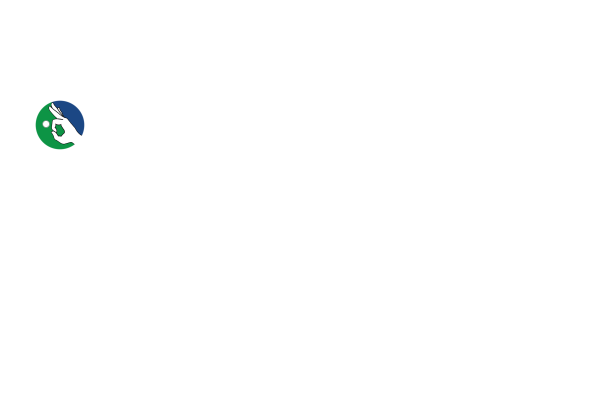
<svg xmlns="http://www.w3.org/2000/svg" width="594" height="395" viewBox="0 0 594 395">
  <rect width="100%" height="100%" fill="#fff"/>
  <image x="35" y="100" width="50" height="50" href="img/1.png"/>
</svg>
